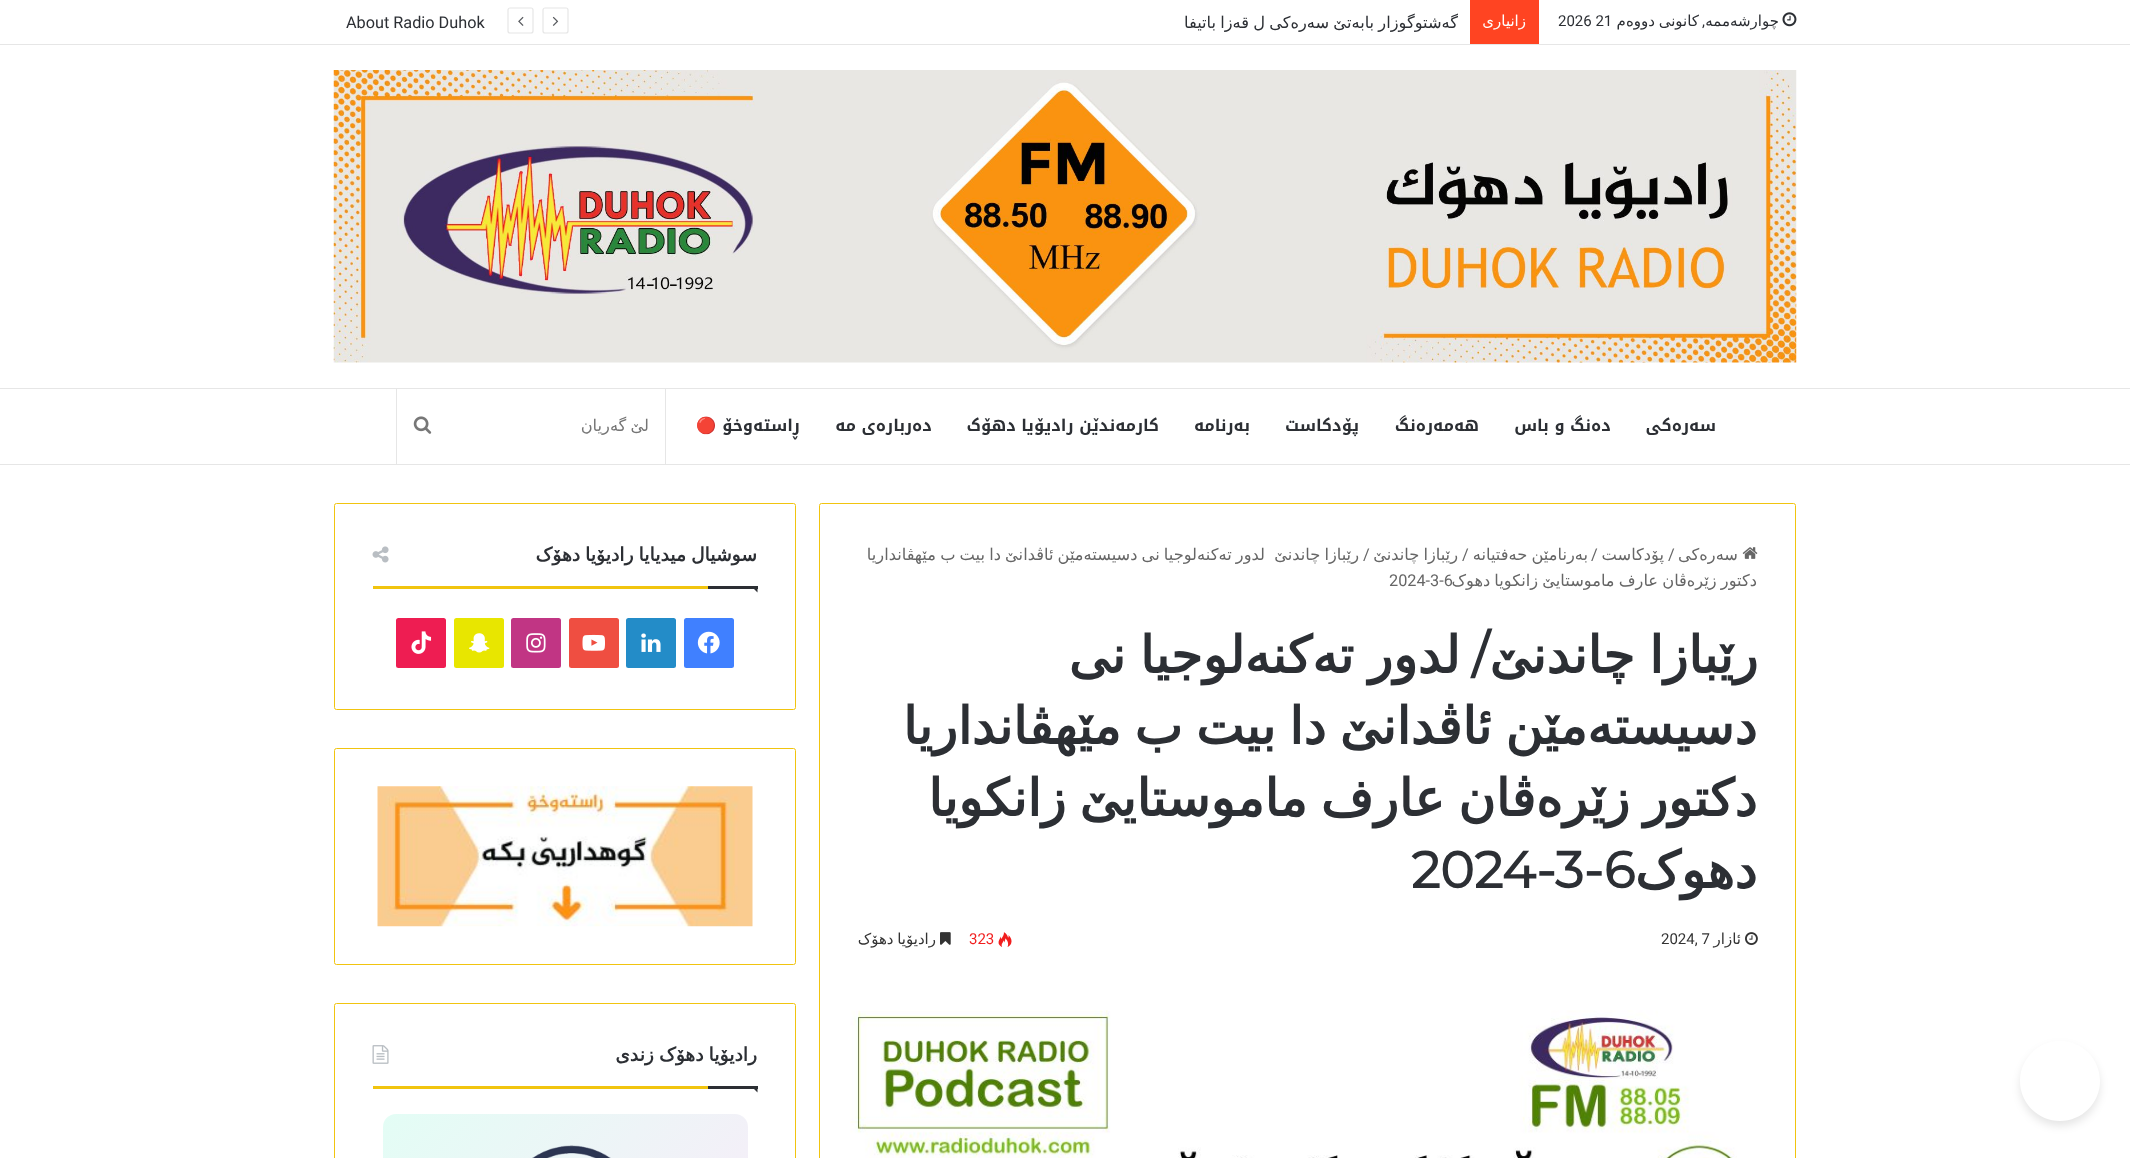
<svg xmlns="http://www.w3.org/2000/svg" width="2130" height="1158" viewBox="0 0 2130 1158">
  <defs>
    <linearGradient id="g1" gradientUnits="userSpaceOnUse" x1="390" y1="1106" x2="740" y2="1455"><stop offset="0" stop-color="#e3fdf5"/><stop offset="1" stop-color="#ffe6fa"/></linearGradient>
    <clipPath id="clip1"><path d="M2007 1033H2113V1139H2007ZM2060 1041C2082 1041 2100 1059 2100 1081C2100 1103 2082 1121 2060 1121C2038 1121 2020 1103 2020 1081C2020 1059 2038 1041 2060 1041Z" clip-rule="evenodd"/></clipPath>
    <clipPath id="clip2"><path d="M1185 0h273v44H1185z"/></clipPath>
  </defs>
  <rect width="100%" height="100%" fill="#fff"/>
  <path d="M0 44h2130v1H0z" fill="#e6e6e6"/>
  <image x="1782" y="12" width="15" height="15" href="img/1.png"/>
  <path d="M1470 0h69v44H1470z" fill="#f42"/>
  <path d="M566 33H545C544 33 543 32.5 543 31V10C543 9 544 8 545 8H566C567 8 568 9 568 10V31C568 32.5 567 33 566 33Z" fill="none" stroke="#e6e6e6" stroke-width="1.2"/>
  <image x="552" y="16" width="7" height="10" href="img/2.png"/>
  <path d="M531 33H510C509 33 508 32.5 508 31V10C508 9 509 8 510 8H531C532 8 533 9 533 10V31C533 32.5 532 33 531 33Z" fill="none" stroke="#e6e6e6" stroke-width="1.2"/>
  <image x="518" y="16" width="6" height="10" href="img/3.png"/>
  <image x="333" y="70" width="1464" height="293" href="img/4.png"/>
  <path d="M0 388h2130v1H0z" fill="#e6e6e6"/>
  <path d="M0 464h2130v1H0z" fill="#e6e6e6"/>
  <path d="M665 389h1v75H665z" fill="#e6e6e6"/>
  <path d="M396 389h1v75H396z" fill="#e6e6e6"/>
  <image x="413" y="416" width="19" height="18" href="img/5.png"/>
  <rect x="819.5" y="503.5" width="976" height="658" rx="2" fill="none" stroke="#f1c40f"/>
  <image x="1742" y="547" width="16" height="12" href="img/6.png"/>
  <image x="1745" y="932" width="13" height="13" href="img/7.png"/>
  <image x="998" y="932" width="14" height="15" href="img/8.png"/>
  <image x="940" y="932" width="11" height="13" href="img/9.png"/>
  <image x="850" y="1010" width="887" height="148" href="img/10.png"/>
  <rect x="334.5" y="503.5" width="461" height="206" rx="2" fill="none" stroke="#f1c40f"/>
  <path d="M373 586h335v3H373z" fill="#f1c40f"/>
  <image x="372" y="546" width="17" height="17" href="img/11.png"/>
  <path d="M751 586H757.5V592.5Z" fill="#2c2f34"/>
  <path d="M708 586h50v3H708z" fill="#2c2f34"/>
  <rect x="684" y="618" width="50" height="50" rx="2.5" fill="#4080ff"/>
  <image x="697" y="631" width="23" height="23" href="img/12.png"/>
  <rect x="626" y="618" width="50" height="50" rx="2.5" fill="#238cc8"/>
  <image x="641" y="633" width="20" height="19" href="img/13.png"/>
  <rect x="569" y="618" width="50" height="50" rx="2.5" fill="#ef4e41"/>
  <image x="582" y="634" width="23" height="17" href="img/14.png"/>
  <rect x="511" y="618" width="50" height="50" rx="2.5" fill="#c13584"/>
  <image x="526" y="633" width="20" height="20" href="img/15.png"/>
  <rect x="454" y="618" width="50" height="50" rx="2.5" fill="#e8e600"/>
  <image x="469" y="633" width="21" height="20" href="img/16.png"/>
  <rect x="396" y="618" width="50" height="50" rx="2.5" fill="#ee1d52"/>
  <image x="411" y="631" width="21" height="23" href="img/17.png"/>
  <rect x="334.5" y="748.5" width="461" height="216" rx="2" fill="none" stroke="#f1c40f"/>
  <image x="377" y="786" width="376" height="141" href="img/18.png"/>
  <rect x="334.5" y="1003.5" width="461" height="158" rx="2" fill="none" stroke="#f1c40f"/>
  <path d="M373 1086h335v3H373z" fill="#f1c40f"/>
  <image x="372" y="1045" width="17" height="19" href="img/19.png"/>
  <path d="M751 1086H757.5V1092.5Z" fill="#2c2f34"/>
  <path d="M708 1086h50v3H708z" fill="#2c2f34"/>
  <rect x="383" y="1114" width="365" height="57" rx="13" fill="url(#g1)"/>
  <image x="532" y="1145" width="79" height="13" href="img/20.png"/>
  <g clip-path="url(#clip1)">
    <rect x="2020" y="1046" width="80" height="80" rx="40" fill="#0000001a" filter="blur(4px)"/>
  </g>
  <text x="1779" y="26" font-family="DejaVu Sans" font-size="15" direction="rtl" fill="#2c2f34">چوارشەممە</text>
  <text x="1705" y="26" font-family="Roboto" font-size="15" direction="rtl" fill="#2c2f34">,</text>
  <text x="1699" y="26" word-spacing="-1" font-family="DejaVu Sans" font-size="15" direction="rtl" fill="#2c2f34">كانونی دووه‌م</text>
  <text x="1558" y="26" font-family="Roboto" font-size="15" fill="#2c2f34">2026 21</text>
  <text x="1526" y="26" font-family="DejaVu Sans" font-size="15" direction="rtl" fill="#fff">زانیاری</text>
  <g clip-path="url(#clip2)">
    <text x="1458" y="28" word-spacing="-1" font-family="DejaVu Sans" font-size="16.25" direction="rtl" fill="#2c2f34">گەشتوگوزار بابەتێ سەرەکی ل قەزا باتیفا</text>
  </g>
  <text x="346" y="28" font-family="Roboto" font-size="16.25" fill="#2c2f34">About Radio Duhok</text>
  <g font-family="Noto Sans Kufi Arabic" font-size="16.25" font-weight="bold" direction="rtl" fill="#2c2f34">
    <text x="1716" y="431">سەرەکی</text>
    <text x="1611" y="431">دەنگ و باس</text>
    <text x="1479" y="431">هەمەرەنگ</text>
    <text x="1359" y="431">پۆدکاست</text>
    <text x="1250" y="431">بەرنامە</text>
    <text x="1159" y="431">کارمەندێن رادیۆیا دھۆک</text>
    <text x="932" y="431">دەربارەی مە</text>
    <text x="800" y="431">ڕاستەوخۆ</text>
  </g>
  <text x="717" y="431" font-family="Noto Color Emoji" font-size="16.25" font-weight="bold" direction="rtl" fill="#2c2f34">🔴</text>
  <text x="649" y="431" word-spacing="-1" font-family="DejaVu Sans" font-size="16.25" direction="rtl" fill="#757575">لێ گەریان</text>
  <text x="1738" y="560" font-family="DejaVu Sans" font-size="16.25" direction="rtl" fill="#666">سەرەکی</text>
  <text x="1668" y="560" font-family="Roboto" font-size="16.25" fill="#666">/</text>
  <text x="1664" y="560" font-family="DejaVu Sans" font-size="16.25" direction="rtl" fill="#666">پۆدکاست</text>
  <text x="1591" y="560" font-family="Roboto" font-size="16.25" fill="#666">/</text>
  <text x="1588" y="560" word-spacing="-1" font-family="DejaVu Sans" font-size="16.25" direction="rtl" fill="#666">بەرنامێن حەفتیانە</text>
  <text x="1462" y="560" font-family="Roboto" font-size="16.25" fill="#666">/</text>
  <text x="1458" y="560" word-spacing="-1" font-family="DejaVu Sans" font-size="16.25" direction="rtl" fill="#666">رێبازا چاندنێ</text>
  <text x="1363" y="560" font-family="Roboto" font-size="16.25" fill="#666">/</text>
  <g font-family="DejaVu Sans" font-size="16.25" direction="rtl" fill="#666">
    <text x="1359" y="560" word-spacing="-1">رێبازا چاندنێ</text>
    <text x="1265" y="560" word-spacing="-1">لدور تەکنەلوجیا نی دسیستەمێن ئاڤدانێ دا بیت ب مێھڤانداریا</text>
    <text x="1757" y="586" word-spacing="-1">دکتور زێرەڤان عارف ماموستایێ زانکویا دھوک</text>
  </g>
  <text x="1389" y="586" font-family="Roboto" font-size="16.25" fill="#666">2024-3-6</text>
  <text x="1758" y="673" word-spacing="-2" font-family="DejaVu Sans" font-size="51.25" font-weight="bold" direction="rtl" fill="#2c2f34">رێبازا چاندنێ</text>
  <text x="1489" y="673" font-family="Montserrat" font-size="51.25" font-weight="bold" direction="rtl" fill="#2c2f34">/</text>
  <g font-family="DejaVu Sans" font-size="51.25" font-weight="bold" direction="rtl" fill="#2c2f34">
    <text x="1460" y="673" word-spacing="-2">لدور تەکنەلوجیا نی</text>
    <text x="1757" y="744" word-spacing="-3">دسیستەمێن ئاڤدانێ دا بیت ب مێھڤانداریا</text>
    <text x="1757" y="816" word-spacing="-3">دکتور زێرەڤان عارف ماموستایێ زانکویا</text>
    <text x="1757" y="888">دھوک</text>
  </g>
  <text x="1411" y="888" font-family="Montserrat" font-size="51.25" font-weight="bold" fill="#2c2f34">2024-3-6</text>
  <text x="1741" y="944" font-family="DejaVu Sans" font-size="15" direction="rtl" fill="#333">ئازار</text>
  <text x="1661" y="944" font-family="Roboto" font-size="15" fill="#333">2024, 7</text>
  <text x="969" y="944" font-family="Roboto" font-size="15" fill="#f11e1e">323</text>
  <text x="936" y="944" word-spacing="-1" font-family="DejaVu Sans" font-size="15" direction="rtl" fill="#333">رادیۆیا دھۆک</text>
  <g font-family="DejaVu Sans" font-size="18.75" font-weight="bold" direction="rtl" fill="#2c2f34">
    <text x="757" y="561" word-spacing="-1">سوشیال میدیایا رادیۆیا دھۆک</text>
    <text x="757" y="1061" word-spacing="-1">رادیۆیا دھۆک زندی</text>
  </g>
</svg>
